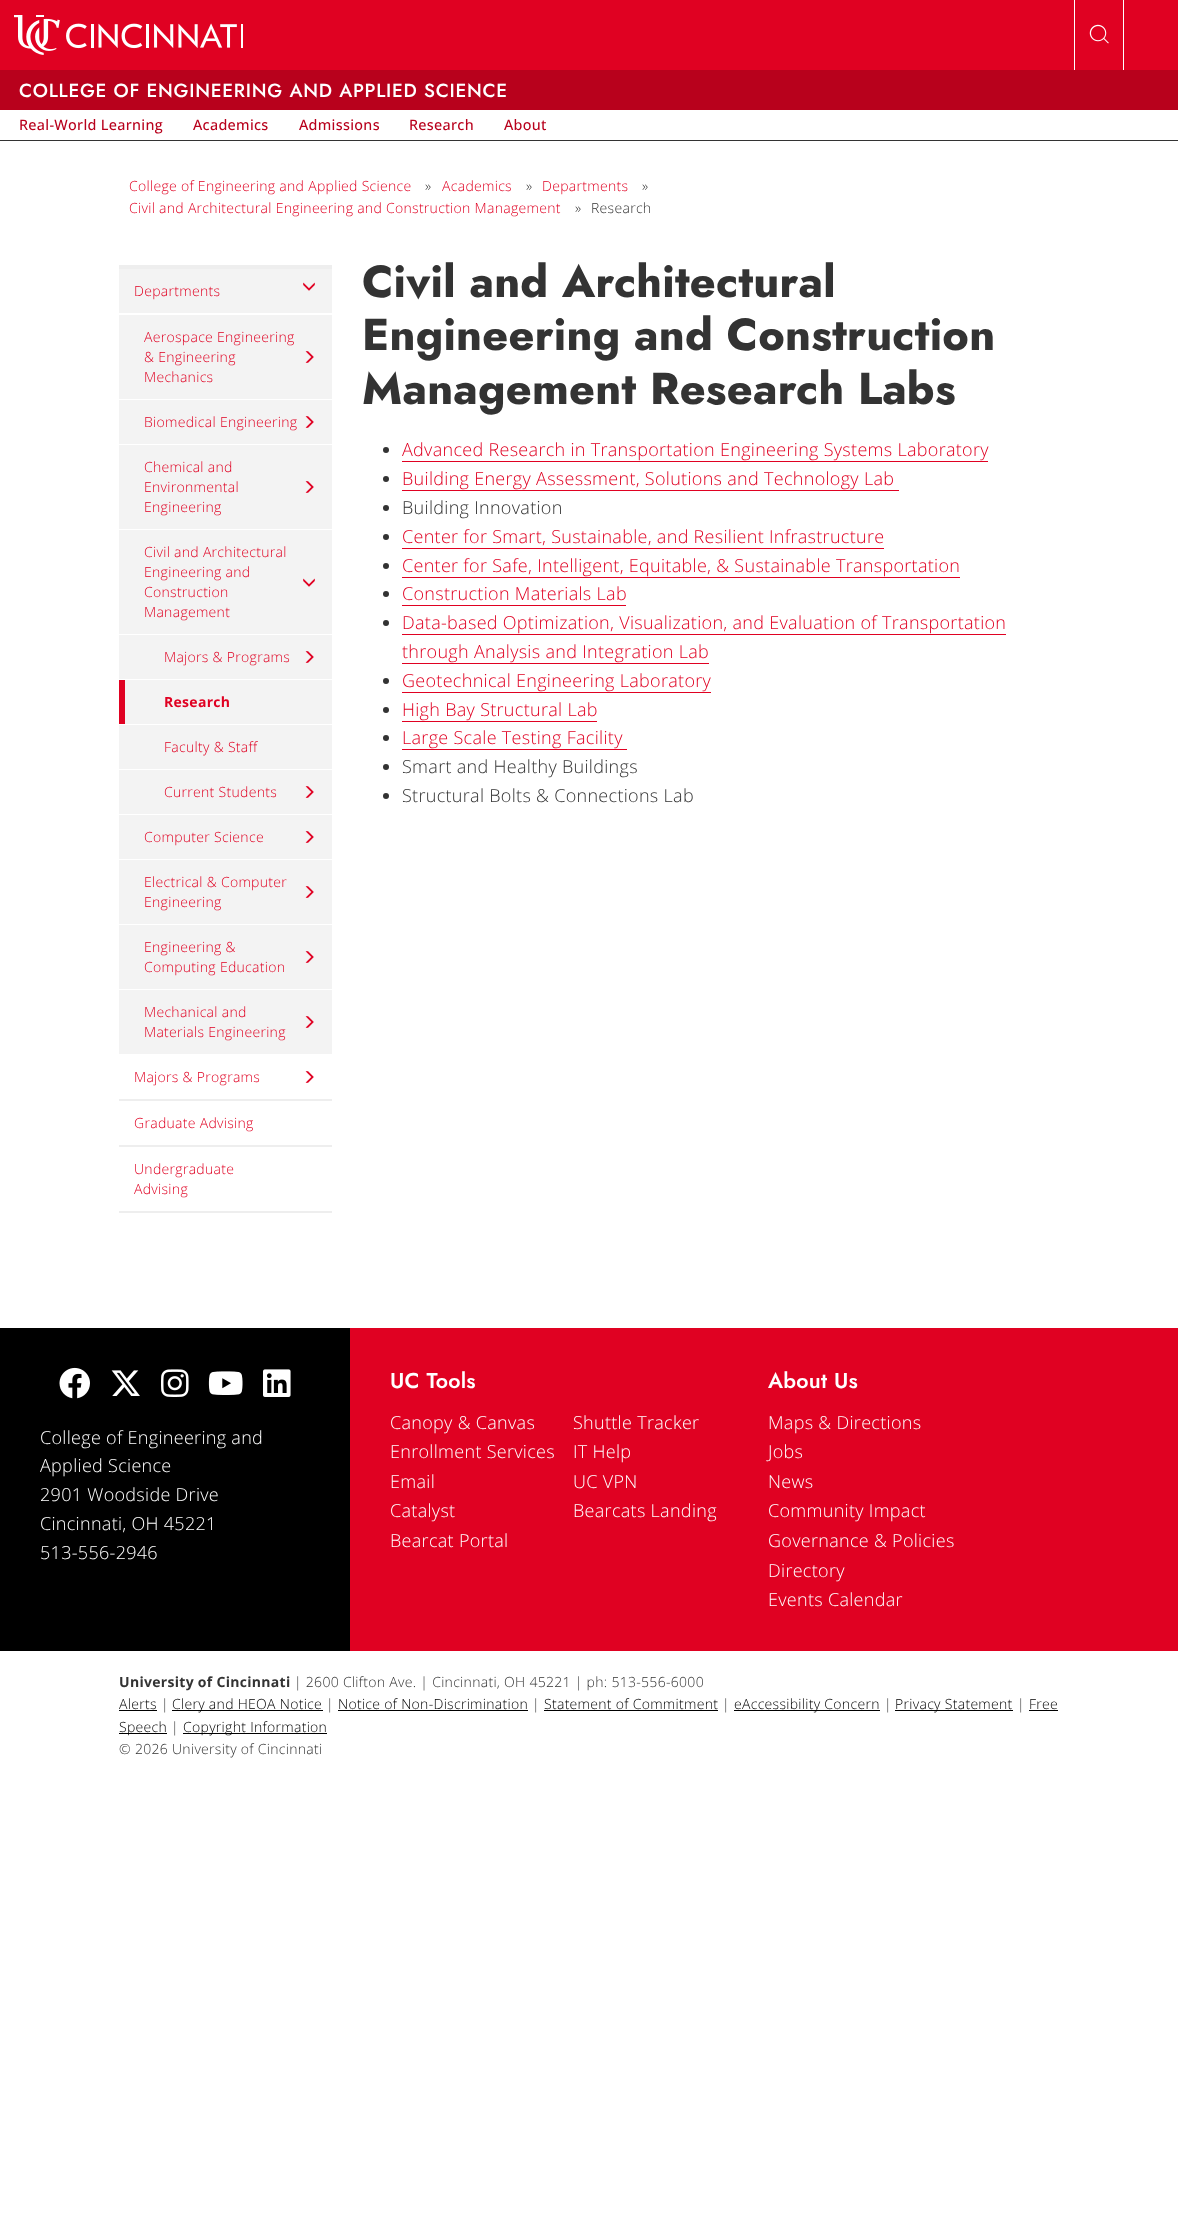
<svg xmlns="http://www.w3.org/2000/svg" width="1178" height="2236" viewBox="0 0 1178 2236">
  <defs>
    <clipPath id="clip1"><path d="M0 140h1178v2H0z"/></clipPath>
  </defs>
  <rect width="100%" height="100%" fill="#fff"/>
  <g clip-path="url(#clip1)">
    <path d="M0 1h1178v140H0z" fill="#333" filter="blur(0.5px)"/>
  </g>
  <path d="M0 0h1178v70H0z" fill="#e00122"/>
  <image x="14" y="15" width="229" height="40" href="img/1.png"/>
  <path d="M1123 0h1v70H1123z" fill="#fff"/>
  <path d="M1074 0h1v70H1074z" fill="#fff"/>
  <image x="1089" y="24" width="20" height="20" href="img/2.png"/>
  <path d="M0 70h1178v40H0z" fill="#b8011c"/>
  <path d="M119 265h213v4H119z" fill="#eee"/>
  <path d="M119 269h213v44H119z" fill="#f3f3f3"/>
  <image x="303" y="282" width="12" height="9" href="img/3.png"/>
  <path d="M119 315h213v739H119z" fill="#f3f3f3"/>
  <path d="M119 399h213v1H119z" fill="#fff"/>
  <image x="305" y="351" width="9" height="12" href="img/4.png"/>
  <path d="M119 444h213v1H119z" fill="#fff"/>
  <image x="305" y="416" width="9" height="12" href="img/4.png"/>
  <path d="M119 529h213v1H119z" fill="#fff"/>
  <image x="305" y="481" width="9" height="12" href="img/4.png"/>
  <path d="M119 634h213v1H119z" fill="#fff"/>
  <image x="303" y="578" width="12" height="9" href="img/3.png"/>
  <path d="M119 679h213v1H119z" fill="#fff"/>
  <image x="305" y="651" width="9" height="12" href="img/4.png"/>
  <path d="M119 724h213v1H119z" fill="#fff"/>
  <path d="M119 680h6v44H119z" fill="#e00122"/>
  <path d="M119 769h213v1H119z" fill="#fff"/>
  <path d="M119 814h213v1H119z" fill="#fff"/>
  <image x="305" y="786" width="9" height="12" href="img/4.png"/>
  <path d="M119 859h213v1H119z" fill="#fff"/>
  <image x="305" y="831" width="9" height="12" href="img/4.png"/>
  <path d="M119 924h213v1H119z" fill="#fff"/>
  <image x="305" y="886" width="9" height="12" href="img/4.png"/>
  <path d="M119 989h213v1H119z" fill="#fff"/>
  <image x="305" y="951" width="9" height="12" href="img/4.png"/>
  <image x="305" y="1016" width="9" height="12" href="img/4.png"/>
  <path d="M119 1099h213v2H119z" fill="#eee"/>
  <image x="305" y="1071" width="9" height="12" href="img/5.png"/>
  <path d="M119 1145h213v2H119z" fill="#eee"/>
  <path d="M119 1211h213v2H119z" fill="#eee"/>
  <circle cx="386" cy="450" r="3" fill="#333"/>
  <path d="M402 461h586v1H402z" fill="#e00122"/>
  <circle cx="386" cy="479" r="3" fill="#333"/>
  <path d="M402 490h497v1H402z" fill="#e00122"/>
  <circle cx="386" cy="508" r="3" fill="#333"/>
  <circle cx="386" cy="537" r="3" fill="#333"/>
  <path d="M402 548h482v1H402z" fill="#e00122"/>
  <circle cx="386" cy="566" r="3" fill="#333"/>
  <path d="M402 577h558v1H402z" fill="#e00122"/>
  <circle cx="386" cy="594" r="3" fill="#333"/>
  <path d="M402 605h224v1H402z" fill="#e00122"/>
  <circle cx="386" cy="623" r="3" fill="#333"/>
  <path d="M402 634h604v1H402z" fill="#e00122"/>
  <path d="M402 663h307v1H402z" fill="#e00122"/>
  <circle cx="386" cy="681" r="3" fill="#333"/>
  <path d="M402 692h309v1H402z" fill="#e00122"/>
  <circle cx="386" cy="710" r="3" fill="#333"/>
  <path d="M402 721h195v1H402z" fill="#e00122"/>
  <circle cx="386" cy="738" r="3" fill="#333"/>
  <path d="M402 749h225v1H402z" fill="#e00122"/>
  <circle cx="386" cy="767" r="3" fill="#333"/>
  <circle cx="386" cy="796" r="3" fill="#333"/>
  <path d="M350 1328h828v323H350z" fill="#e00122"/>
  <path d="M0 1328h350v323H0z" fill="#000"/>
  <image x="59" y="1367" width="31" height="32" href="img/6.png"/>
  <image x="111" y="1370" width="29" height="26" href="img/7.png"/>
  <image x="161" y="1369" width="28" height="28" href="img/8.png"/>
  <image x="208" y="1371" width="35" height="24" href="img/9.png"/>
  <image x="263" y="1369" width="28" height="28" href="img/10.png"/>
  <path d="M119 1710h38v1H119z" fill="#000"/>
  <path d="M172 1710h151v1H172z" fill="#000"/>
  <path d="M338 1710h190v1H338z" fill="#000"/>
  <path d="M544 1710h174v1H544z" fill="#000"/>
  <path d="M734 1710h146v1H734z" fill="#000"/>
  <path d="M895 1710h118v1H895z" fill="#000"/>
  <path d="M1029 1710h29v1H1029z" fill="#000"/>
  <path d="M119 1733h48v1H119z" fill="#000"/>
  <path d="M183 1733h144v1H183z" fill="#000"/>
  <text x="19" y="97" font-family="'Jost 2'" font-size="18.9" font-weight="500" letter-spacing="0.75" fill="#fff">COLLEGE OF ENGINEERING AND APPLIED SCIENCE</text>
  <g font-family="Open Sans" font-size="14.4" font-weight="500" letter-spacing="0.3" fill="#b8011c">
    <text x="19" y="130">Real-World Learning</text>
    <text x="193" y="130">Academics</text>
    <text x="299" y="130">Admissions</text>
    <text x="409" y="130">Research</text>
    <text x="504" y="130">About</text>
  </g>
  <text x="129" y="191" font-family="Open Sans" font-size="14" font-weight="300" letter-spacing="0.3" fill="#e00122">College of Engineering and Applied Science</text>
  <text x="425" y="191" font-family="Open Sans" font-size="14" font-weight="300" letter-spacing="0.3" fill="#333">»</text>
  <text x="442" y="191" font-family="Open Sans" font-size="14" font-weight="300" letter-spacing="0.3" fill="#e00122">Academics</text>
  <text x="526" y="191" font-family="Open Sans" font-size="14" font-weight="300" letter-spacing="0.3" fill="#333">»</text>
  <text x="542" y="191" font-family="Open Sans" font-size="14" font-weight="300" letter-spacing="0.3" fill="#e00122">Departments</text>
  <text x="642" y="191" font-family="Open Sans" font-size="14" font-weight="300" letter-spacing="0.3" fill="#333">»</text>
  <text x="129" y="213" font-family="Open Sans" font-size="14" font-weight="300" letter-spacing="0.3" fill="#e00122">Civil and Architectural Engineering and Construction Management</text>
  <g font-family="Open Sans" font-size="14" font-weight="300" letter-spacing="0.3" fill="#333">
    <text x="575" y="213">»</text>
    <text x="591" y="213">Research</text>
  </g>
  <g font-family="Open Sans" font-size="14" font-weight="300" letter-spacing="0.3" fill="#e00122">
    <text x="134" y="296">Departments</text>
    <text x="144" y="342">Aerospace Engineering</text>
    <text x="144" y="362">&amp; Engineering</text>
    <text x="144" y="382">Mechanics</text>
    <text x="144" y="427">Biomedical Engineering</text>
    <text x="144" y="472">Chemical and</text>
    <text x="144" y="492">Environmental</text>
    <text x="144" y="512">Engineering</text>
    <text x="144" y="557">Civil and Architectural</text>
    <text x="144" y="577">Engineering and</text>
    <text x="144" y="597">Construction</text>
    <text x="144" y="617">Management</text>
    <text x="164" y="662">Majors &amp; Programs</text>
  </g>
  <text x="164" y="707" font-family="Open Sans" font-size="14" font-weight="bold" letter-spacing="0.3" fill="#e00122">Research</text>
  <g font-family="Open Sans" font-size="14" font-weight="300" letter-spacing="0.3" fill="#e00122">
    <text x="164" y="752">Faculty &amp; Staff</text>
    <text x="164" y="797">Current Students</text>
    <text x="144" y="842">Computer Science</text>
    <text x="144" y="887">Electrical &amp; Computer</text>
    <text x="144" y="907">Engineering</text>
    <text x="144" y="952">Engineering &amp;</text>
    <text x="144" y="972">Computing Education</text>
    <text x="144" y="1017">Mechanical and</text>
    <text x="144" y="1037">Materials Engineering</text>
    <text x="134" y="1082">Majors &amp; Programs</text>
    <text x="134" y="1128">Graduate Advising</text>
    <text x="134" y="1174">Undergraduate</text>
    <text x="134" y="1194">Advising</text>
  </g>
  <g font-family="Jost" font-size="44.6" font-weight="bold" letter-spacing="0.25" fill="#333">
    <text x="362" y="297">Civil and Architectural</text>
    <text x="362" y="350">Engineering and Construction</text>
    <text x="362" y="404">Management Research Labs</text>
  </g>
  <g font-family="Open Sans" font-size="18" font-weight="300" letter-spacing="0.3" fill="#e00122">
    <text x="402" y="456">Advanced Research in Transportation Engineering Systems Laboratory</text>
    <text x="402" y="485">Building Energy Assessment, Solutions and Technology Lab</text>
  </g>
  <text x="402" y="514" font-family="Open Sans" font-size="18" font-weight="300" letter-spacing="0.3" fill="#333">Building Innovation</text>
  <g font-family="Open Sans" font-size="18" font-weight="300" letter-spacing="0.3" fill="#e00122">
    <text x="402" y="543">Center for Smart, Sustainable, and Resilient Infrastructure</text>
    <text x="402" y="572">Center for Safe, Intelligent, Equitable, &amp; Sustainable Transportation</text>
    <text x="402" y="600">Construction Materials Lab</text>
    <text x="402" y="629">Data-based Optimization, Visualization, and Evaluation of Transportation</text>
    <text x="402" y="658">through Analysis and Integration Lab</text>
    <text x="402" y="687">Geotechnical Engineering Laboratory</text>
    <text x="402" y="716">High Bay Structural Lab</text>
    <text x="402" y="744">Large Scale Testing Facility</text>
  </g>
  <g font-family="Open Sans" font-size="18" font-weight="300" letter-spacing="0.3" fill="#333">
    <text x="402" y="773">Smart and Healthy Buildings</text>
    <text x="402" y="802">Structural Bolts &amp; Connections Lab</text>
  </g>
  <g font-family="Open Sans" font-size="18" font-weight="300" letter-spacing="0.3" fill="#fff">
    <text x="40" y="1444">College of Engineering and</text>
    <text x="40" y="1472">Applied Science</text>
    <text x="40" y="1501">2901 Woodside Drive</text>
    <text x="40" y="1530">Cincinnati, OH 45221</text>
    <text x="40" y="1559">513-556-2946</text>
  </g>
  <text x="390" y="1388" font-family="Jost" font-size="21.5" font-weight="500" letter-spacing="0.25" fill="#fff">UC Tools</text>
  <g font-family="Open Sans" font-size="18" font-weight="300" letter-spacing="0.3" fill="#fff">
    <text x="390" y="1429">Canopy &amp; Canvas</text>
    <text x="573" y="1429">Shuttle Tracker</text>
    <text x="390" y="1458">Enrollment Services</text>
    <text x="573" y="1458">IT Help</text>
    <text x="390" y="1488">Email</text>
    <text x="573" y="1488">UC VPN</text>
    <text x="390" y="1517">Catalyst</text>
    <text x="573" y="1517">Bearcats Landing</text>
    <text x="390" y="1547">Bearcat Portal</text>
  </g>
  <text x="768" y="1388" font-family="Jost" font-size="21.5" font-weight="500" letter-spacing="0.25" fill="#fff">About Us</text>
  <g font-family="Open Sans" font-size="18" font-weight="300" letter-spacing="0.3" fill="#fff">
    <text x="768" y="1429">Maps &amp; Directions</text>
    <text x="768" y="1458">Jobs</text>
    <text x="768" y="1488">News</text>
    <text x="768" y="1517">Community Impact</text>
    <text x="768" y="1547">Governance &amp; Policies</text>
    <text x="768" y="1577">Directory</text>
    <text x="768" y="1606">Events Calendar</text>
  </g>
  <text x="119" y="1687" font-family="Open Sans" font-size="14" font-weight="bold" letter-spacing="0.3" fill="#333">University of Cincinnati</text>
  <text x="294" y="1687" font-family="Open Sans" font-size="14" font-weight="300" letter-spacing="0.3" fill="#333">| 2600 Clifton Ave. | Cincinnati, OH 45221 | ph: 513-556-6000</text>
  <text x="119" y="1709" font-family="Open Sans" font-size="14" font-weight="300" letter-spacing="0.3" fill="#000">Alerts</text>
  <text x="161" y="1709" font-family="Open Sans" font-size="14" font-weight="300" letter-spacing="0.3" fill="#333">|</text>
  <text x="172" y="1709" font-family="Open Sans" font-size="14" font-weight="300" letter-spacing="0.3" fill="#000">Clery and HEOA Notice</text>
  <text x="326" y="1709" font-family="Open Sans" font-size="14" font-weight="300" letter-spacing="0.3" fill="#333">|</text>
  <text x="338" y="1709" font-family="Open Sans" font-size="14" font-weight="300" letter-spacing="0.3" fill="#000">Notice of Non-Discrimination</text>
  <text x="532" y="1709" font-family="Open Sans" font-size="14" font-weight="300" letter-spacing="0.3" fill="#333">|</text>
  <text x="544" y="1709" font-family="Open Sans" font-size="14" font-weight="300" letter-spacing="0.3" fill="#000">Statement of Commitment</text>
  <text x="722" y="1709" font-family="Open Sans" font-size="14" font-weight="300" letter-spacing="0.3" fill="#333">|</text>
  <text x="734" y="1709" font-family="Open Sans" font-size="14" font-weight="300" letter-spacing="0.3" fill="#000">eAccessibility Concern</text>
  <text x="884" y="1709" font-family="Open Sans" font-size="14" font-weight="300" letter-spacing="0.3" fill="#333">|</text>
  <text x="895" y="1709" font-family="Open Sans" font-size="14" font-weight="300" letter-spacing="0.3" fill="#000">Privacy Statement</text>
  <text x="1017" y="1709" font-family="Open Sans" font-size="14" font-weight="300" letter-spacing="0.3" fill="#333">|</text>
  <g font-family="Open Sans" font-size="14" font-weight="300" letter-spacing="0.3" fill="#000">
    <text x="1029" y="1709">Free</text>
    <text x="119" y="1732">Speech</text>
  </g>
  <text x="171" y="1732" font-family="Open Sans" font-size="14" font-weight="300" letter-spacing="0.3" fill="#333">|</text>
  <text x="183" y="1732" font-family="Open Sans" font-size="14" font-weight="300" letter-spacing="0.3" fill="#000">Copyright Information</text>
  <text x="119" y="1754" font-family="Open Sans" font-size="14" font-weight="300" letter-spacing="0.3" fill="#333">© 2026 University of Cincinnati</text>
</svg>
